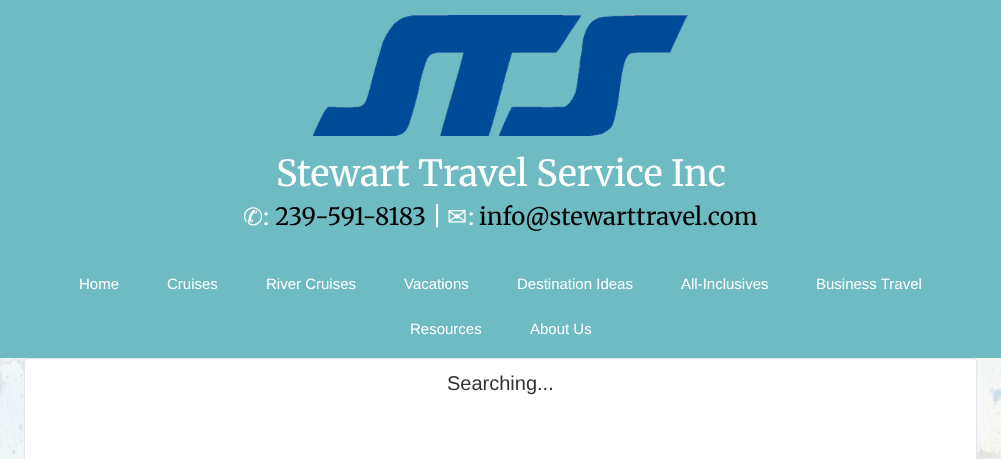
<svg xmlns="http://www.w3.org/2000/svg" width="1001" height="459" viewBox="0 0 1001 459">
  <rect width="100%" height="100%" fill="#fff"/>
  <image x="0" y="358" width="1001" height="101" href="img/1.png"/>
  <path d="M0 0h1001v358H0z" fill="#6ebbc3"/>
  <image x="313" y="15" width="375" height="121" href="img/2.png"/>
  <path d="M0 358h1001v101H0z" fill="#ffffffcc"/>
  <rect x="24.5" y="358.5" width="952" height="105" rx="3.5" fill="#fff" stroke="#e4e6ef"/>
  <text x="276" y="186" font-family="Merriweather" font-size="36" font-weight="300" fill="#fff">Stewart Travel Service Inc</text>
  <text x="243" y="225" font-family="DejaVu Sans" font-size="24" fill="#fff">✆</text>
  <text x="263" y="225" font-family="Merriweather" font-size="24" font-weight="300" fill="#fff">:</text>
  <text x="275" y="225" font-family="Merriweather" font-size="24" font-weight="300" fill="#000">239-591-8183</text>
  <text x="432" y="225" font-family="Merriweather" font-size="24" font-weight="300" fill="#fff">|</text>
  <text x="447" y="225" font-family="DejaVu Sans" font-size="24" fill="#fff">✉</text>
  <text x="468" y="225" font-family="Merriweather" font-size="24" font-weight="300" fill="#fff">:</text>
  <text x="479" y="225" font-family="Merriweather" font-size="24" font-weight="300" fill="#000">info@stewarttravel.com</text>
  <g font-family="Liberation Sans" font-size="15" fill="#fff">
    <text x="79" y="289">Home</text>
    <text x="167" y="289">Cruises</text>
    <text x="266" y="289">River Cruises</text>
    <text x="404" y="289">Vacations</text>
    <text x="517" y="289">Destination Ideas</text>
    <text x="681" y="289">All-Inclusives</text>
    <text x="816" y="289">Business Travel</text>
    <text x="410" y="334">Resources</text>
    <text x="530" y="334">About Us</text>
  </g>
  <text x="447" y="390" font-family="Liberation Sans" font-size="20" fill="#333">Searching...</text>
</svg>
